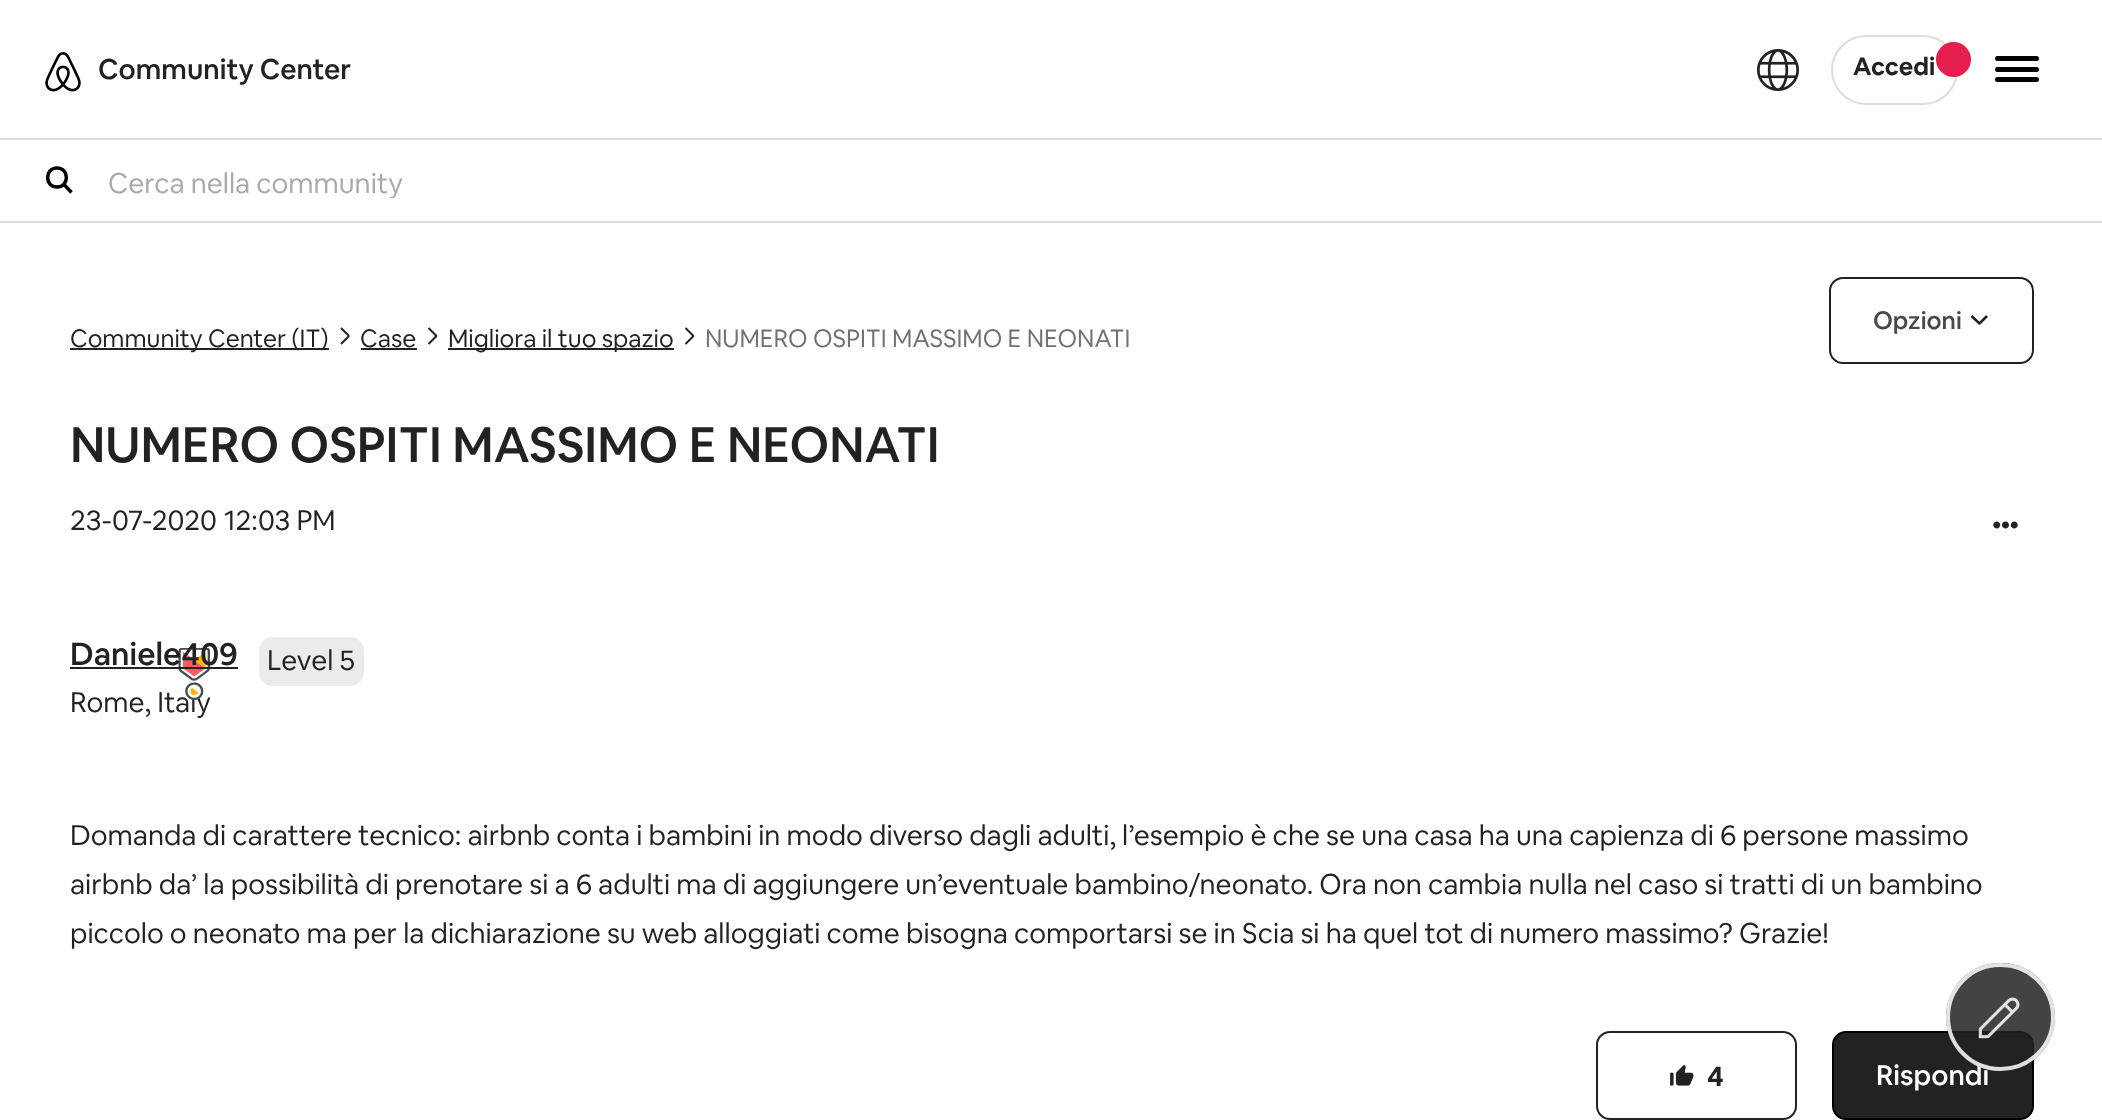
<svg xmlns="http://www.w3.org/2000/svg" width="2102" height="1120" viewBox="0 0 2102 1120">
  <defs>
    <clipPath id="clip1"><path d="M109 170h1932v28H109z"/></clipPath>
  </defs>
  <rect width="100%" height="100%" fill="#fff"/>
  <path d="M0 138h2102v2H0z" fill="#ddd"/>
  <image x="45" y="52" width="36" height="40" href="img/1.png"/>
  <image x="1757" y="49" width="42" height="42" href="img/2.png"/>
  <rect x="1832" y="36" width="125" height="68" rx="34" fill="none" stroke="#ddd" stroke-width="2"/>
  <circle cx="1953.5" cy="59.5" r="17.5" fill="#e61e4e"/>
  <rect x="1995" y="56" width="44" height="5" rx="2.5" fill="#000"/>
  <rect x="1995" y="67" width="44" height="5" rx="2.5" fill="#000"/>
  <rect x="1995" y="77" width="44" height="5" rx="2.5" fill="#000"/>
  <path d="M0 221h2102v2H0z" fill="#ddd"/>
  <path d="M57 187C69.5 187 69.5 168 57 168C44.5 168 44.5 187 57 187ZM64 184.5L71.5 192.5" fill="none" stroke="#000" stroke-width="3.5"/>
  <rect x="1830" y="278" width="203" height="85" rx="13" fill="none" stroke="#222" stroke-width="2"/>
  <path d="M1987 316L1980 323C1979.5 323.5 1979 323.5 1979 323L1971.5 316" fill="none" stroke="#222" stroke-width="2.6"/>
  <path d="M70 348h259v2H70z" fill="#222"/>
  <path d="M341 344L348.5 336.5C348.5 336.5 348.5 336 348.5 335.5L341 328" fill="none" stroke="#222" stroke-width="2"/>
  <path d="M361 348h56v2H361z" fill="#222"/>
  <path d="M428.5 344L436 336.5C436 336.5 436 336 436 335.5L428.5 328" fill="none" stroke="#222" stroke-width="2"/>
  <path d="M448 348h226v2H448z" fill="#222"/>
  <path d="M685.5 344L693 336.5C693.5 336.5 693.5 336 693 335.5L685.5 328" fill="none" stroke="#222" stroke-width="2"/>
  <rect x="259" y="637" width="105" height="49" rx="14" fill="#ebebeb"/>
  <image x="1993" y="521" width="25" height="8" href="img/4.png"/>
  <rect x="1597" y="1032" width="199" height="87" rx="13" fill="none" stroke="#222" stroke-width="2"/>
  <image x="1670" y="1064" width="24" height="22" href="img/5.png"/>
  <rect x="1833" y="1032" width="200" height="87" rx="13" fill="#222" stroke="#000" stroke-width="2"/>
  <text x="98" y="79" font-family="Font" font-size="28" font-weight="500" fill="#222">Community Center</text>
  <text x="1853" y="75" font-family="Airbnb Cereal" font-size="24.5" font-weight="bold" fill="#222">Accedi</text>
  <g clip-path="url(#clip1)">
    <text x="108" y="193" font-family="Airbnb Cereal" font-size="28" fill="#a9a9a9">Cerca nella community</text>
  </g>
  <text x="1873" y="329" font-family="Font" font-size="24.5" font-weight="500" fill="#484848">Opzioni</text>
  <g font-family="Airbnb Cereal" font-size="24.5" fill="#222">
    <text x="70" y="347">Community Center (IT)</text>
    <text x="360" y="347">Case</text>
    <text x="448" y="347">Migliora il tuo spazio</text>
  </g>
  <text x="705" y="347" font-family="Airbnb Cereal" font-size="24.5" fill="#717171">NUMERO OSPITI MASSIMO E NEONATI</text>
  <text x="70" y="462" font-family="Font" font-size="49" font-weight="500" fill="#222">NUMERO OSPITI MASSIMO E NEONATI</text>
  <g font-family="Airbnb Cereal" font-size="28" fill="#222">
    <text x="70" y="530">23-07-2020</text>
    <text x="224" y="530">12:03 PM</text>
    <text x="267" y="670">Level 5</text>
    <text x="70" y="712">Rome, Italy</text>
  </g>
  <image x="178" y="648" width="32" height="52" href="img/3.png"/>
  <text x="70" y="665" font-family="Font" font-size="31.5" font-weight="500" fill="#222">Daniele409</text>
  <path d="M70 667h168v2H70z" fill="#222"/>
  <g font-family="Airbnb Cereal" font-size="28" fill="#222">
    <text x="70" y="845">Domanda di carattere tecnico: airbnb conta i bambini in modo diverso dagli adulti, l’esempio è che se una casa ha una capienza di 6 persone massimo</text>
    <text x="70" y="894">airbnb da’ la possibilità di prenotare si a 6 adulti ma di aggiungere un’eventuale bambino/neonato. Ora non cambia nulla nel caso si tratti di un bambino</text>
    <text x="70" y="943">piccolo o neonato ma per la dichiarazione su web alloggiati come bisogna comportarsi se in Scia si ha quel tot di numero massimo? Grazie!</text>
  </g>
  <text x="1707" y="1086" font-family="Airbnb Cereal" font-size="28" font-weight="bold" fill="#222">4</text>
  <text x="1876" y="1085" font-family="Font" font-size="28" font-weight="500" fill="#fff">Rispondi</text>
  <rect x="1946" y="963" width="109" height="108" rx="54" fill="#222222d9"/>
  <rect x="1948" y="965" width="105" height="104" rx="52" fill="none" stroke="#ffffffd9" stroke-width="4"/>
  <image x="1978" y="997" width="42" height="42" href="img/6.png"/>
</svg>
